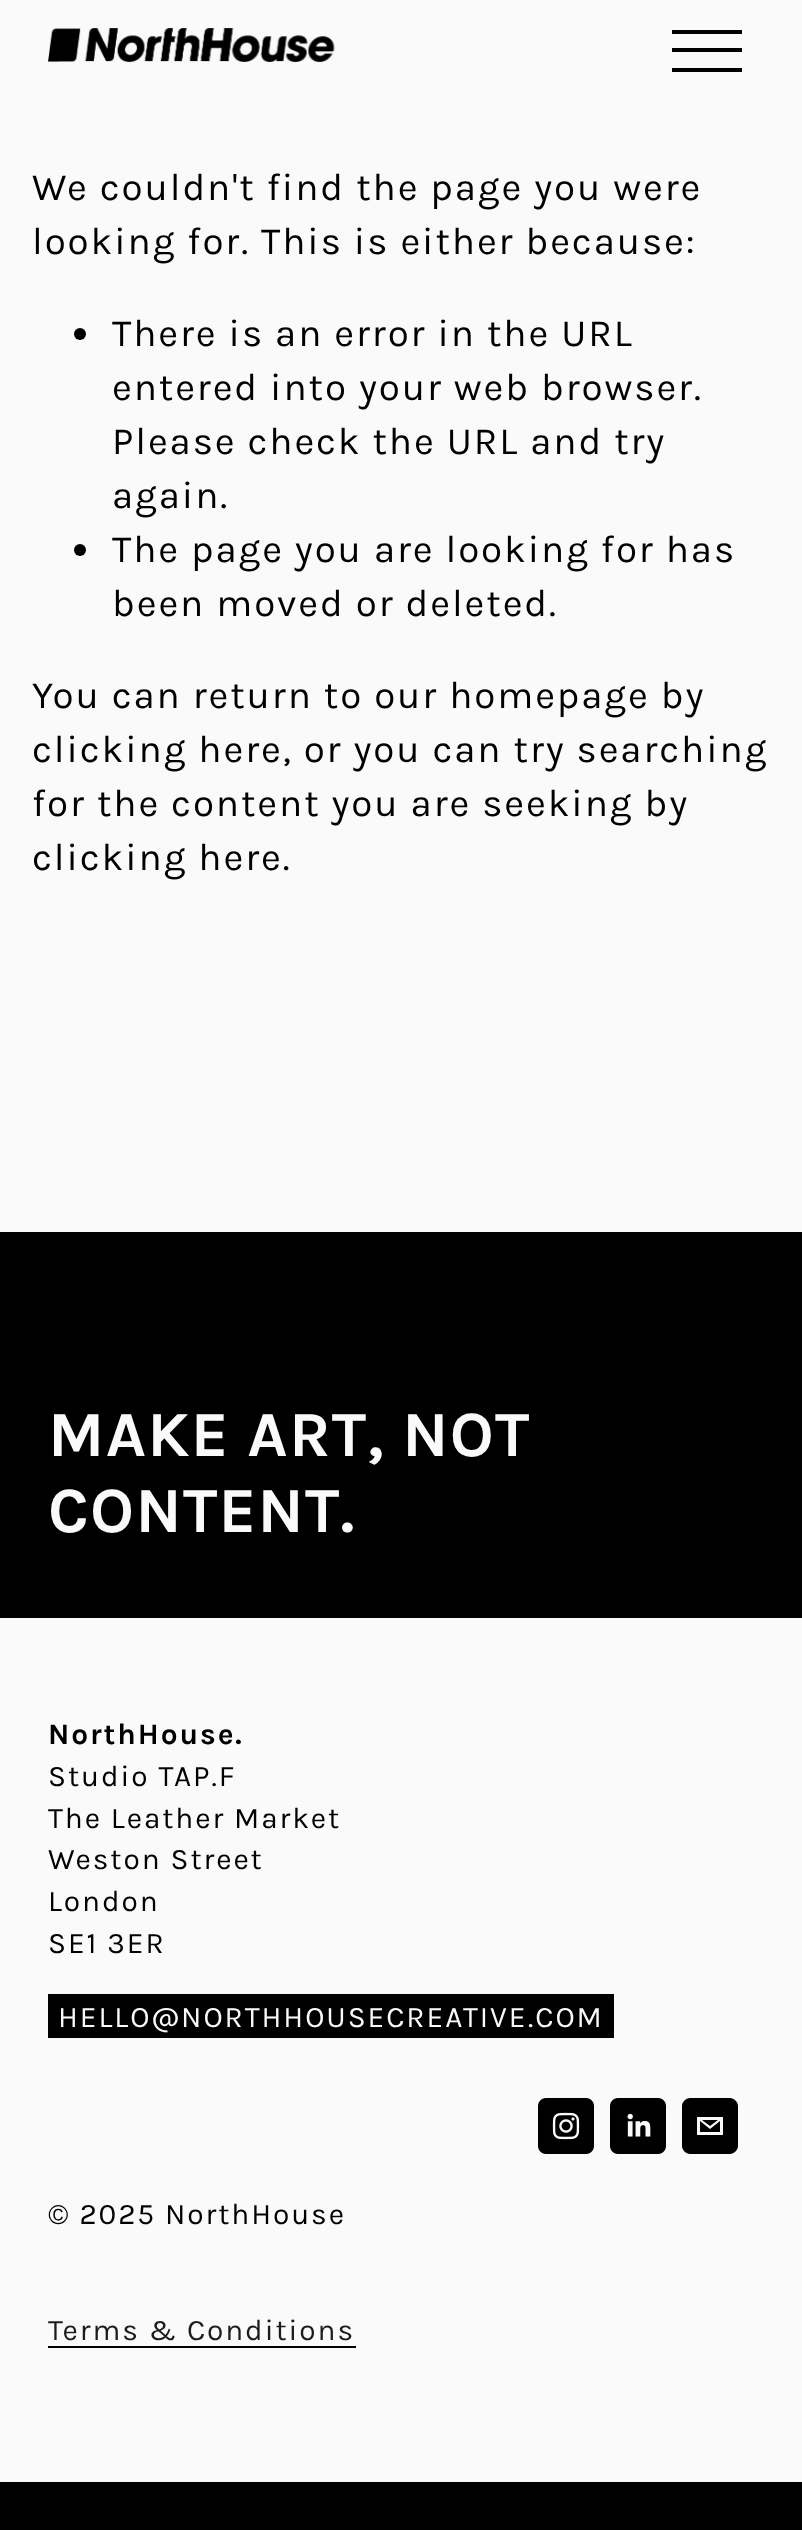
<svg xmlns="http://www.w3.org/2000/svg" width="802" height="2530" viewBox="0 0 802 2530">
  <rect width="100%" height="100%" fill="#fafafa"/>
  <image x="48" y="28" width="287" height="35" href="img/1.png"/>
  <path d="M672 30h70v4H672z" fill="#000"/>
  <path d="M672 48h70v4H672z" fill="#000"/>
  <path d="M672 68h70v4H672z" fill="#000"/>
  <circle cx="80" cy="334" r="6" fill="#000"/>
  <circle cx="80" cy="550" r="6" fill="#000"/>
  <path d="M0 1232h802v386H0z" fill="#000"/>
  <path d="M48 1994h566v44H48z" fill="#000"/>
  <image x="538" y="2098" width="56" height="56" href="img/2.png"/>
  <image x="610" y="2098" width="56" height="56" href="img/3.png"/>
  <path d="M690 2098C686 2098 682 2102 682 2106V2146C682 2150 686 2154 690 2154H730C734 2154 738 2150 738 2146V2106C738 2102 734 2098 730 2098ZM723 2135V2117H697V2135ZM718 2120L710 2126L702 2120ZM720 2121V2132H700V2121L710 2129Z" fill="#000" fill-rule="evenodd"/>
  <path d="M48 2346h308v2H48z" fill="#000"/>
  <path d="M0 2482h802v48H0z" fill="#000"/>
  <g font-family="Karla" font-size="38.5" letter-spacing="1.9" fill="#000">
    <text x="32" y="200">We couldn't find the page you were</text>
    <text x="32" y="254">looking for. This is either because:</text>
    <text x="112" y="346">There is an error in the URL</text>
    <text x="112" y="400">entered into your web browser.</text>
    <text x="112" y="454">Please check the URL and try</text>
    <text x="112" y="508">again.</text>
    <text x="112" y="562">The page you are looking for has</text>
    <text x="112" y="616">been moved or deleted.</text>
    <text x="32" y="708">You can return to our homepage by</text>
    <text x="32" y="762">clicking here, or you can try searching</text>
    <text x="32" y="816">for the content you are seeking by</text>
    <text x="32" y="870">clicking here.</text>
  </g>
  <g font-family="Karla" font-size="64.5" font-weight="bold" letter-spacing="1.25" fill="#fafafa">
    <text x="48" y="1456">MAKE ART, NOT</text>
    <text x="48" y="1532">CONTENT.</text>
  </g>
  <text x="48" y="1744" font-family="Karla" font-size="29.8" font-weight="bold" letter-spacing="1.9" fill="#000">NorthHouse.</text>
  <g font-family="Karla" font-size="29.8" letter-spacing="1.9" fill="#000">
    <text x="48" y="1786">Studio TAP.F</text>
    <text x="48" y="1828">The Leather Market</text>
    <text x="48" y="1869">Weston Street</text>
    <text x="48" y="1911">London</text>
    <text x="48" y="1953">SE1 3ER</text>
  </g>
  <g font-family="Karla" font-size="29.8" letter-spacing="1.9" fill="#fafafa">
    <text x="58" y="2027">HELLO@NORTHHOUSECREATIVE</text>
    <text x="528" y="2027">.COM</text>
  </g>
  <text x="48" y="2224" font-family="Karla" font-size="29.8" letter-spacing="1.9" fill="#000">© 2025 NorthHouse</text>
  <text x="48" y="2340" font-family="Karla" font-size="29.8" letter-spacing="1.9" fill="#1c1c1c">Terms &amp; Conditions</text>
</svg>
